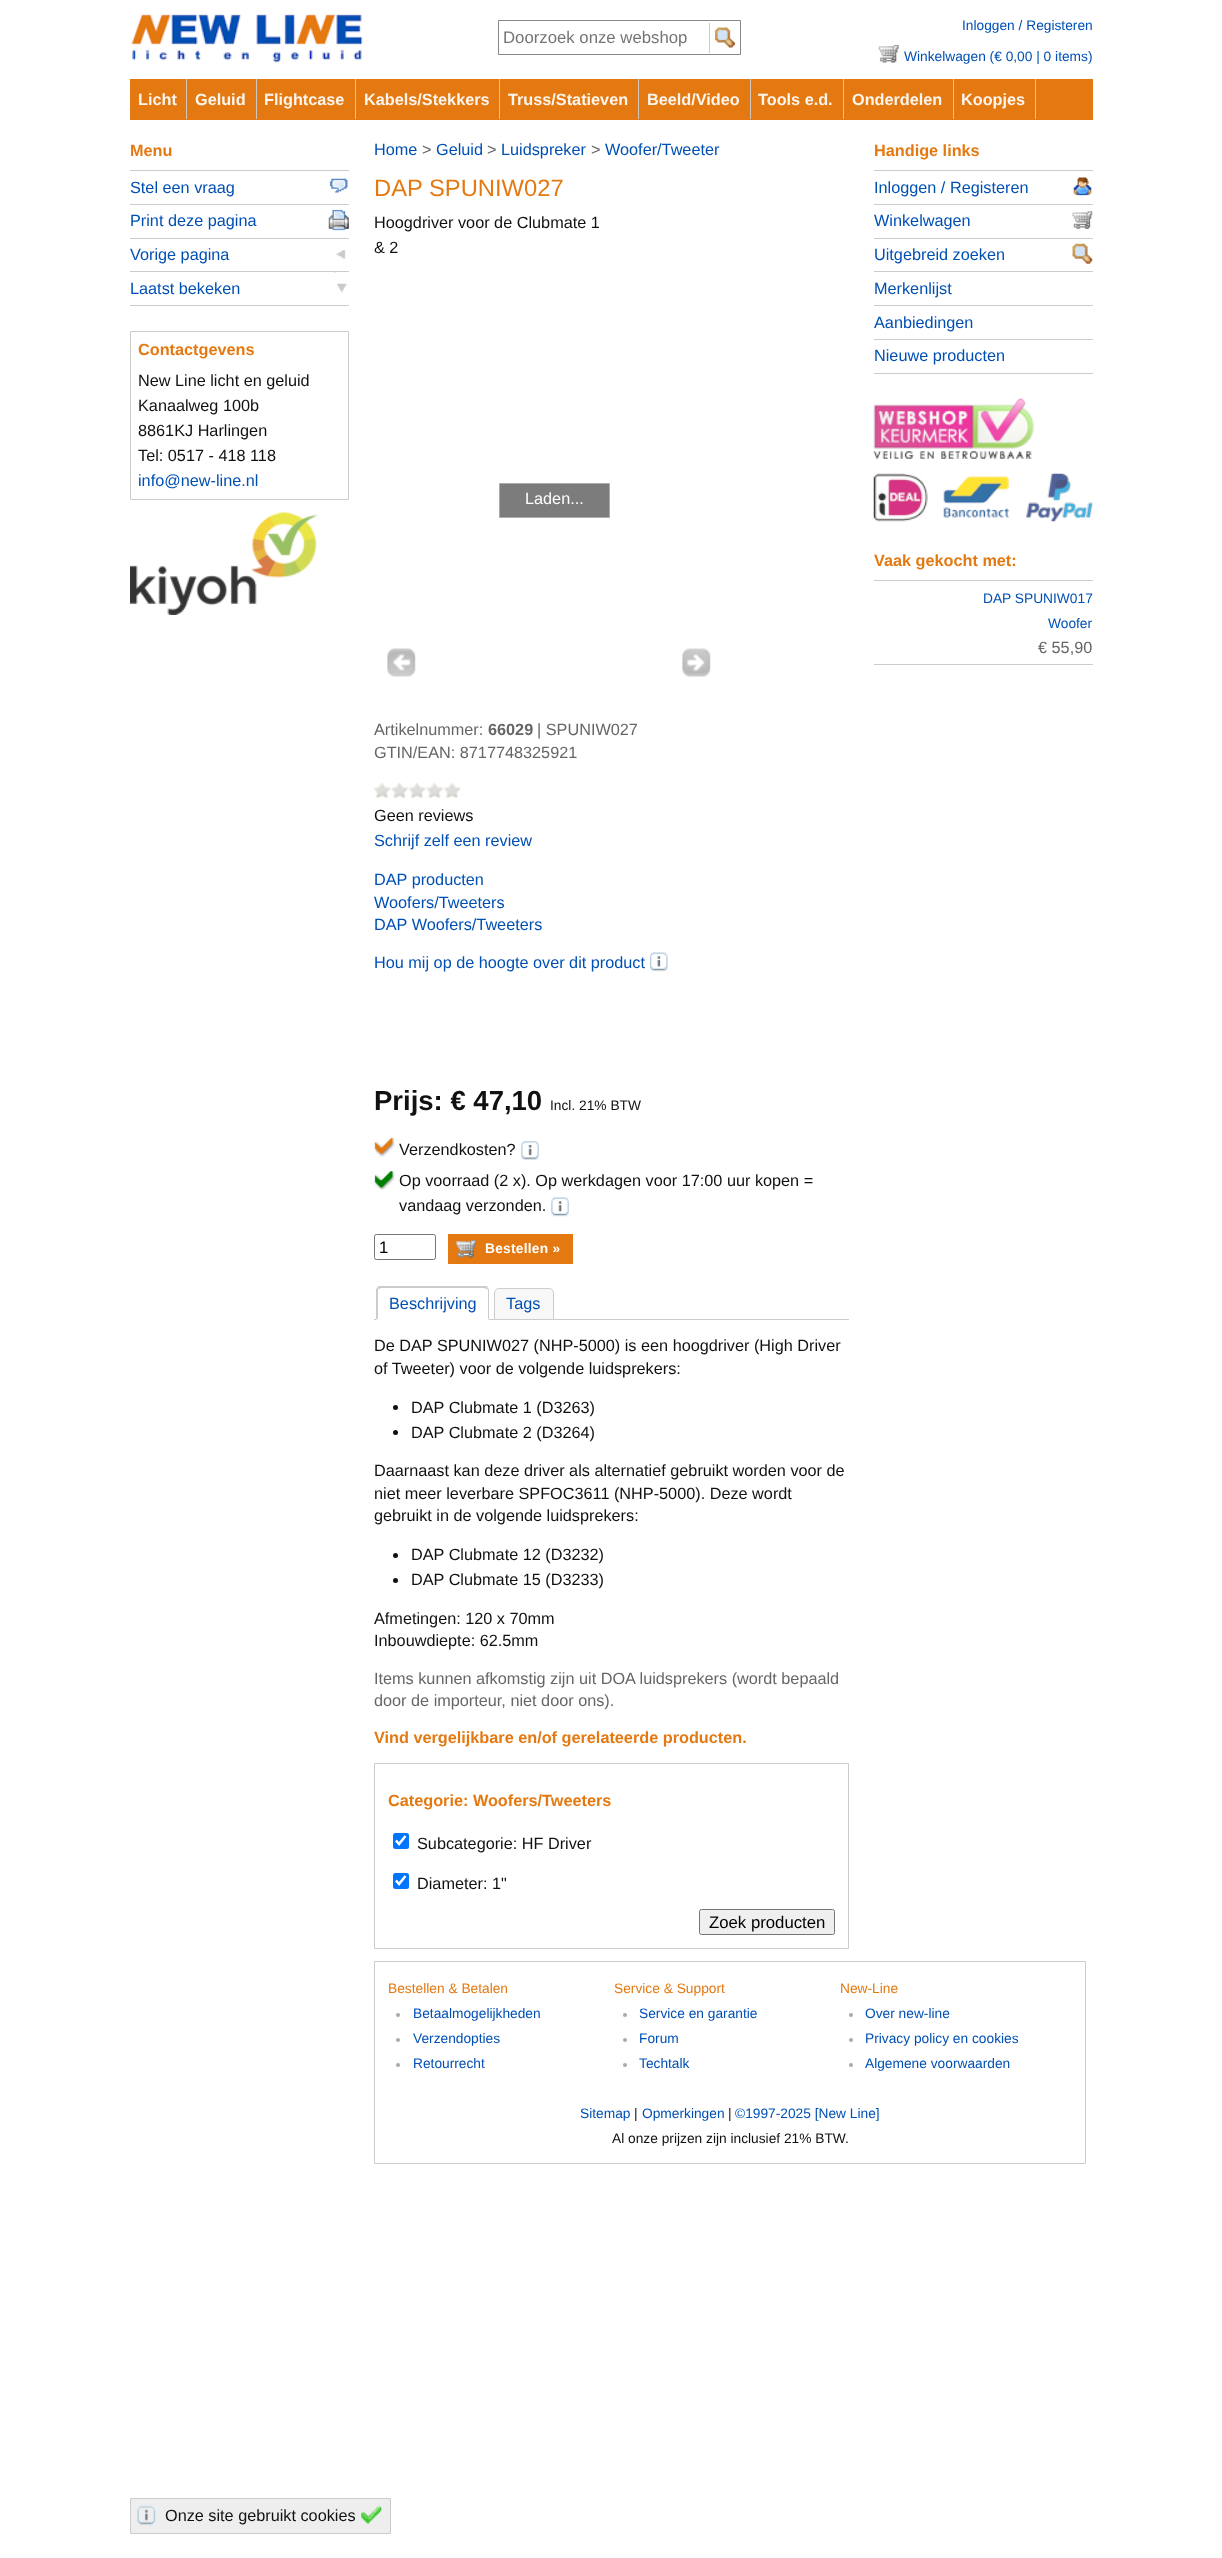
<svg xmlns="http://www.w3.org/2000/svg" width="1222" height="2558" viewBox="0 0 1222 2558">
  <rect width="100%" height="100%" fill="#fff"/>
  <image x="131" y="14" width="232" height="49" href="img/1.png"/>
  <path d="M498.5 20.5h242v34H498.5z" fill="none" stroke="#888"/>
  <image x="715" y="27" width="20" height="21" href="img/2.png"/>
  <path d="M709 23h1v30H709z" fill="#ccc"/>
  <image x="878" y="44" width="21" height="19" href="img/3.png"/>
  <path d="M130 79h963v41H130z" fill="#e47911"/>
  <path d="M186 79h1v40H186z" fill="#cec6bf"/>
  <path d="M256 79h1v40H256z" fill="#cec6bf"/>
  <path d="M355 79h1v40H355z" fill="#cec6bf"/>
  <path d="M499 79h1v40H499z" fill="#cec6bf"/>
  <path d="M638 79h1v40H638z" fill="#cec6bf"/>
  <path d="M750 79h1v40H750z" fill="#cec6bf"/>
  <path d="M843 79h1v40H843z" fill="#cec6bf"/>
  <path d="M953 79h1v40H953z" fill="#cec6bf"/>
  <path d="M1035 79h1v40H1035z" fill="#cec6bf"/>
  <path d="M130 170h219v1H130z" fill="#ccc"/>
  <image x="329" y="178" width="19" height="15" href="img/4.png"/>
  <path d="M130 204h219v1H130z" fill="#ccc"/>
  <image x="328" y="209" width="21" height="22" href="img/5.png"/>
  <path d="M130 238h219v1H130z" fill="#ccc"/>
  <image x="333" y="250" width="13" height="23" href="img/6.png"/>
  <path d="M130 271h219v1H130z" fill="#ccc"/>
  <image x="337" y="283" width="10" height="24" href="img/7.png"/>
  <path d="M130 305h219v1H130z" fill="#ccc"/>
  <path d="M130.5 331.5h218v168H130.5z" fill="none" stroke="#ccc"/>
  <image x="130" y="512" width="188" height="103" href="img/8.png"/>
  <path d="M499.5 483.5h110v34H499.5z" fill="#7c7c7c" stroke="#acacac"/>
  <image x="387" y="648" width="29" height="29" href="img/9.png"/>
  <image x="682" y="648" width="29" height="29" href="img/10.png"/>
  <image x="373" y="782" width="88" height="16" href="img/11.png"/>
  <image x="649" y="952" width="19" height="20" href="img/12.png"/>
  <image x="374" y="1137" width="21" height="20" href="img/13.png"/>
  <image x="521" y="1141" width="18" height="19" href="img/14.png"/>
  <image x="374" y="1171" width="21" height="19" href="img/15.png"/>
  <image x="551" y="1197" width="18" height="20" href="img/16.png"/>
  <rect x="374.5" y="1234.5" width="61" height="25" rx="2" fill="none" stroke="#767676"/>
  <path d="M448 1234h125v30H448z" fill="#e47911"/>
  <image x="456" y="1239" width="21" height="19" href="img/17.png"/>
  <path d="M374 1319h475v1H374z" fill="#ccc"/>
  <path d="M381 1286H484C487 1286 489 1288 489 1291V1320H376V1291C376 1288 378 1286 381 1286Z" fill="#fff"/>
  <path d="M381 1288L379 1289L377 1287L379 1286H486L488 1287L486 1289L484 1288Z" fill="#ccc"/>
  <path d="M489 1289.5V1320L488 1319V1291C488 1290 487.5 1289 486.5 1288.5L487.5 1287.5Z" fill="#ccc"/>
  <path d="M489 1320L488 1319H378V1318L376 1320Z" fill="#fff"/>
  <path d="M376 1320V1289.5L377.5 1287.5L379 1289C378 1289 378 1290 378 1291V1318Z" fill="#ccc"/>
  <path d="M499 1288.5H549C551.5 1288.5 553.5 1290.5 553.5 1293V1319.5H494.5V1293C494.5 1290.5 496.5 1288.5 499 1288.5Z" fill="#f8f8f8" stroke="#ccc"/>
  <circle cx="395.5" cy="1407.5" r="2.5" fill="#111"/>
  <circle cx="395.5" cy="1432.5" r="2.5" fill="#111"/>
  <circle cx="395.5" cy="1555.5" r="2.5" fill="#111"/>
  <circle cx="395.5" cy="1580.5" r="2.5" fill="#111"/>
  <path d="M374.5 1763.5h474v185H374.5z" fill="none" stroke="#ccc"/>
  <rect x="393" y="1833" width="16" height="16" rx="2.5" fill="#0075ff"/>
  <path d="M396 1840.5L399 1844L405.5 1836" fill="none" stroke="#fff" stroke-width="2.6"/>
  <rect x="393" y="1873" width="16" height="16" rx="2.5" fill="#0075ff"/>
  <path d="M396 1880.5L399 1884L405.5 1876" fill="none" stroke="#fff" stroke-width="2.6"/>
  <rect x="699.5" y="1909.5" width="135" height="25" rx="2" fill="#efefef" stroke="#767676"/>
  <path d="M874 170h219v1H874z" fill="#ccc"/>
  <image x="1073" y="177" width="19" height="19" href="img/18.png"/>
  <path d="M874 204h219v1H874z" fill="#ccc"/>
  <image x="1072" y="211" width="21" height="18" href="img/19.png"/>
  <path d="M874 238h219v1H874z" fill="#ccc"/>
  <image x="1072" y="243" width="21" height="21" href="img/20.png"/>
  <path d="M874 271h219v1H874z" fill="#ccc"/>
  <path d="M874 305h219v1H874z" fill="#ccc"/>
  <path d="M874 339h219v1H874z" fill="#ccc"/>
  <path d="M874 373h219v1H874z" fill="#ccc"/>
  <image x="873" y="398" width="161" height="61" href="img/21.png"/>
  <image x="873" y="473" width="220" height="49" href="img/22.png"/>
  <path d="M874 580h219v1H874z" fill="#ccc"/>
  <path d="M874 664h219v1H874z" fill="#ccc"/>
  <path d="M374.5 1961.5h711v202H374.5z" fill="none" stroke="#ccc"/>
  <circle cx="398" cy="2015" r="2" fill="#aaa"/>
  <circle cx="398" cy="2040" r="2" fill="#aaa"/>
  <circle cx="398" cy="2065" r="2" fill="#aaa"/>
  <circle cx="625" cy="2015" r="2" fill="#aaa"/>
  <circle cx="625" cy="2040" r="2" fill="#aaa"/>
  <circle cx="625" cy="2065" r="2" fill="#aaa"/>
  <circle cx="851" cy="2015" r="2" fill="#aaa"/>
  <circle cx="851" cy="2040" r="2" fill="#aaa"/>
  <circle cx="851" cy="2065" r="2" fill="#aaa"/>
  <path d="M130.5 2498.5h260v35H130.5z" fill="#eee" stroke="#ccc"/>
  <image x="137" y="2505" width="19" height="21" href="img/23.png"/>
  <image x="361" y="2505" width="21" height="20" href="img/24.png"/>
  <text x="503" y="43" font-family="Liberation Sans" font-size="16.75" fill="#757575">Doorzoek onze webshop</text>
  <g font-family="Liberation Sans" font-size="13.75" fill="#0050b4">
    <text x="962" y="30">Inloggen / Registeren</text>
    <text x="904" y="61">Winkelwagen (€ 0,00 | 0 items)</text>
  </g>
  <g font-family="Liberation Sans" font-size="16.25" font-weight="bold" fill="#fdf6ee">
    <text x="138" y="105">Licht</text>
    <text x="195" y="105">Geluid</text>
    <text x="264" y="105">Flightcase</text>
    <text x="364" y="105">Kabels/Stekkers</text>
    <text x="508" y="105">Truss/Statieven</text>
    <text x="647" y="105">Beeld/Video</text>
    <text x="758" y="105">Tools e.d.</text>
    <text x="852" y="105">Onderdelen</text>
    <text x="961" y="105">Koopjes</text>
  </g>
  <text x="130" y="156" font-family="Liberation Sans" font-size="16.25" font-weight="bold" fill="#e47911">Menu</text>
  <g font-family="Liberation Sans" font-size="16.25" fill="#0050b4">
    <text x="130" y="193">Stel een vraag</text>
    <text x="130" y="226">Print deze pagina</text>
    <text x="130" y="260">Vorige pagina</text>
    <text x="130" y="294">Laatst bekeken</text>
  </g>
  <text x="138" y="355" font-family="Liberation Sans" font-size="16.25" font-weight="bold" fill="#e47911">Contactgevens</text>
  <g font-family="Liberation Sans" font-size="16.25" fill="#111">
    <text x="138" y="386">New Line licht en geluid</text>
    <text x="138" y="411">Kanaalweg 100b</text>
    <text x="138" y="436">8861KJ Harlingen</text>
    <text x="138" y="461">Tel: 0517 - 418 118</text>
  </g>
  <g font-family="Liberation Sans" font-size="16.25" fill="#0050b4">
    <text x="138" y="486">info@new-line.nl</text>
    <text x="374" y="155">Home</text>
  </g>
  <text x="422" y="155" font-family="Liberation Sans" font-size="16.25" fill="#666">&gt;</text>
  <text x="436" y="155" font-family="Liberation Sans" font-size="16.25" fill="#0050b4">Geluid</text>
  <text x="487" y="155" font-family="Liberation Sans" font-size="16.25" fill="#666">&gt;</text>
  <text x="501" y="155" font-family="Liberation Sans" font-size="16.25" fill="#0050b4">Luidspreker</text>
  <text x="591" y="155" font-family="Liberation Sans" font-size="16.25" fill="#666">&gt;</text>
  <text x="605" y="155" font-family="Liberation Sans" font-size="16.25" fill="#0050b4">Woofer/Tweeter</text>
  <text x="374" y="196" font-family="Liberation Sans" font-size="23.75" fill="#e47911">DAP SPUNIW027</text>
  <g font-family="Liberation Sans" font-size="16.25" fill="#111">
    <text x="374" y="228">Hoogdriver voor de Clubmate 1</text>
    <text x="374" y="253">&amp; 2</text>
  </g>
  <text x="525" y="504" font-family="Liberation Sans" font-size="16.25" fill="#fff">Laden...</text>
  <text x="374" y="735" font-family="Liberation Sans" font-size="16.25" fill="#666">Artikelnummer:</text>
  <text x="488" y="735" font-family="Liberation Sans" font-size="16.25" font-weight="bold" fill="#666">66029</text>
  <g font-family="Liberation Sans" font-size="16.25" fill="#666">
    <text x="537" y="735">| SPUNIW027</text>
    <text x="374" y="758">GTIN/EAN: 8717748325921</text>
  </g>
  <text x="374" y="821" font-family="Liberation Sans" font-size="16.25" fill="#111">Geen reviews</text>
  <g font-family="Liberation Sans" font-size="16.25" fill="#0050b4">
    <text x="374" y="846">Schrijf zelf een review</text>
    <text x="374" y="885">DAP producten</text>
    <text x="374" y="908">Woofers/Tweeters</text>
    <text x="374" y="930">DAP Woofers/Tweeters</text>
    <text x="374" y="968">Hou mij op de hoogte over dit product</text>
  </g>
  <text x="374" y="1110" font-family="Liberation Sans" font-size="27.5" font-weight="bold" fill="#111">Prijs: € 47,10</text>
  <text x="550" y="1110" font-family="Liberation Sans" font-size="13.75" fill="#111">Incl. 21% BTW</text>
  <g font-family="Liberation Sans" font-size="16.25" fill="#111">
    <text x="399" y="1155">Verzendkosten?</text>
    <text x="399" y="1186">Op voorraad (2 x). Op werkdagen voor 17:00 uur kopen =</text>
    <text x="399" y="1211">vandaag verzonden.</text>
  </g>
  <text x="379" y="1253" font-family="Liberation Sans" font-size="16.75" fill="#000">1</text>
  <text x="485" y="1253" font-family="Liberation Sans" font-size="13.75" font-weight="bold" letter-spacing="0.25" fill="#fff">Bestellen »</text>
  <g font-family="Liberation Sans" font-size="16.25" fill="#0050b4">
    <text x="389" y="1309">Beschrijving</text>
    <text x="506" y="1309">Tags</text>
  </g>
  <g font-family="Liberation Sans" font-size="16.25" fill="#111">
    <text x="374" y="1351">De DAP SPUNIW027 (NHP-5000) is een hoogdriver (High Driver</text>
    <text x="374" y="1374">of Tweeter) voor de volgende luidsprekers:</text>
    <text x="411" y="1413">DAP Clubmate 1 (D3263)</text>
    <text x="411" y="1438">DAP Clubmate 2 (D3264)</text>
    <text x="374" y="1476">Daarnaast kan deze driver als alternatief gebruikt worden voor de</text>
    <text x="374" y="1499">niet meer leverbare SPFOC3611 (NHP-5000). Deze wordt</text>
    <text x="374" y="1521">gebruikt in de volgende luidsprekers:</text>
    <text x="411" y="1560">DAP Clubmate 12 (D3232)</text>
    <text x="411" y="1585">DAP Clubmate 15 (D3233)</text>
    <text x="374" y="1624">Afmetingen: 120 x 70mm</text>
    <text x="374" y="1646">Inbouwdiepte: 62.5mm</text>
  </g>
  <g font-family="Liberation Sans" font-size="16.25" fill="#666">
    <text x="374" y="1684">Items kunnen afkomstig zijn uit DOA luidsprekers (wordt bepaald</text>
    <text x="374" y="1706">door de importeur, niet door ons).</text>
  </g>
  <g font-family="Liberation Sans" font-size="16.25" font-weight="bold" fill="#e47911">
    <text x="374" y="1743">Vind vergelijkbare en/of gerelateerde producten.</text>
    <text x="388" y="1806">Categorie: Woofers/Tweeters</text>
  </g>
  <g font-family="Liberation Sans" font-size="16.25" fill="#111">
    <text x="417" y="1849">Subcategorie: HF Driver</text>
    <text x="417" y="1889">Diameter: 1"</text>
  </g>
  <text x="709" y="1928" font-family="Liberation Sans" font-size="16.75" fill="#000">Zoek producten</text>
  <text x="874" y="156" font-family="Liberation Sans" font-size="16.25" font-weight="bold" fill="#e47911">Handige links</text>
  <g font-family="Liberation Sans" font-size="16.25" fill="#0050b4">
    <text x="874" y="193">Inloggen / Registeren</text>
    <text x="874" y="226">Winkelwagen</text>
    <text x="874" y="260">Uitgebreid zoeken</text>
    <text x="874" y="294">Merkenlijst</text>
    <text x="874" y="328">Aanbiedingen</text>
    <text x="874" y="361">Nieuwe producten</text>
  </g>
  <text x="874" y="566" font-family="Liberation Sans" font-size="16.25" font-weight="bold" fill="#e47911">Vaak gekocht met:</text>
  <g font-family="Liberation Sans" font-size="13.75" fill="#0050b4">
    <text x="983" y="603">DAP SPUNIW017</text>
    <text x="1048" y="628">Woofer</text>
  </g>
  <text x="1038" y="653" font-family="Liberation Sans" font-size="16.25" fill="#666">€ 55,90</text>
  <text x="388" y="1993" font-family="Liberation Sans" font-size="13.75" fill="#e47911">Bestellen &amp; Betalen</text>
  <g font-family="Liberation Sans" font-size="13.75" fill="#0050b4">
    <text x="413" y="2018">Betaalmogelijkheden</text>
    <text x="413" y="2043">Verzendopties</text>
    <text x="413" y="2068">Retourrecht</text>
  </g>
  <text x="614" y="1993" font-family="Liberation Sans" font-size="13.75" fill="#e47911">Service &amp; Support</text>
  <g font-family="Liberation Sans" font-size="13.75" fill="#0050b4">
    <text x="639" y="2018">Service en garantie</text>
    <text x="639" y="2043">Forum</text>
    <text x="639" y="2068">Techtalk</text>
  </g>
  <text x="840" y="1993" font-family="Liberation Sans" font-size="13.75" fill="#e47911">New-Line</text>
  <g font-family="Liberation Sans" font-size="13.75" fill="#0050b4">
    <text x="865" y="2018">Over new-line</text>
    <text x="865" y="2043">Privacy policy en cookies</text>
    <text x="865" y="2068">Algemene voorwaarden</text>
    <text x="580" y="2118">Sitemap</text>
  </g>
  <text x="634" y="2118" font-family="Liberation Sans" font-size="13.75" fill="#111">|</text>
  <text x="642" y="2118" font-family="Liberation Sans" font-size="13.75" fill="#0050b4">Opmerkingen</text>
  <text x="728" y="2118" font-family="Liberation Sans" font-size="13.75" fill="#111">|</text>
  <text x="735" y="2118" font-family="Liberation Sans" font-size="13.75" fill="#0050b4">©1997-2025 [New Line]</text>
  <text x="612" y="2143" font-family="Liberation Sans" font-size="13.75" fill="#111">Al onze prijzen zijn inclusief 21% BTW.</text>
  <text x="165" y="2521" font-family="Liberation Sans" font-size="16.25" fill="#111">Onze site gebruikt cookies</text>
</svg>
